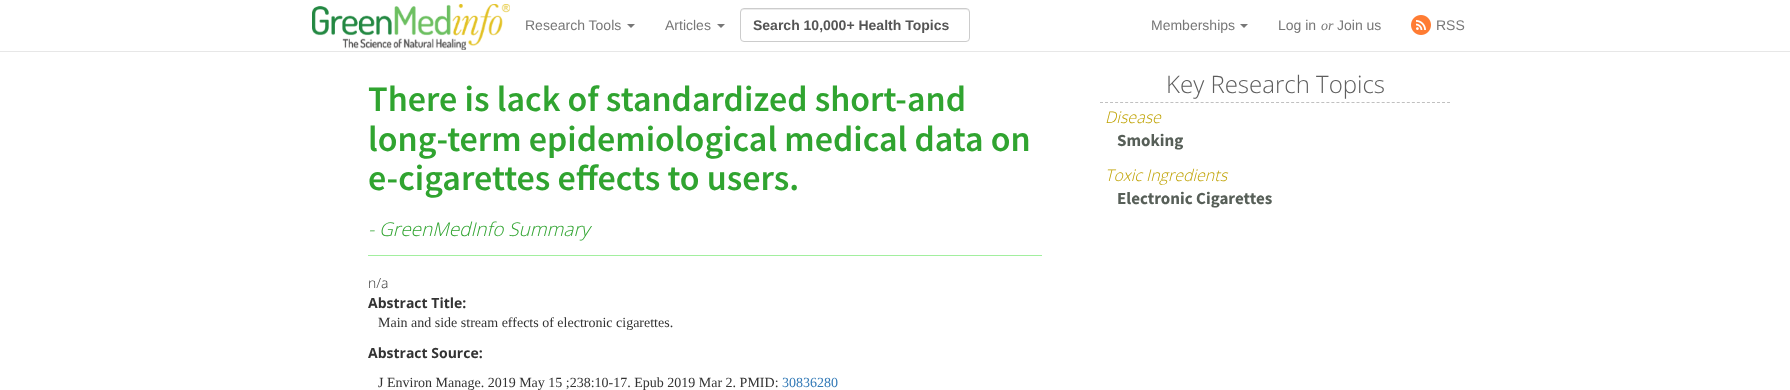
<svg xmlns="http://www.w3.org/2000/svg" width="1790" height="390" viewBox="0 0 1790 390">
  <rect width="100%" height="100%" fill="#fff"/>
  <path d="M0 51h1790v1H0z" fill="#e7e7e7"/>
  <image x="312" y="4" width="198" height="46" href="img/1.png"/>
  <path d="M627 24H635L631 28Z" fill="#777"/>
  <path d="M717 24H725L721 28Z" fill="#777"/>
  <path d="M744 10H966C968 10 969 11 969 13V12C969 10 968 9 966 9H744C742 9 741 10 741 12V13C741 11 742 10 744 10Z" fill="#ececec"/>
  <rect x="740.5" y="8.5" width="229" height="33" rx="3.5" fill="none" stroke="#ccc"/>
  <path d="M1240 24H1248L1244 28Z" fill="#777"/>
  <image x="1411" y="15" width="20" height="20" href="img/2.png"/>
  <path d="M368 255h674v1H368z" fill="#a2ef9f"/>
  <path d="M1100 102.5H1450" fill="none" stroke="#c0c0c0" stroke-dasharray="3 2.03"/>
  <g font-family="Liberation Sans" font-size="14" fill="#777">
    <text x="525" y="30">Research Tools</text>
    <text x="665" y="30">Articles</text>
  </g>
  <text x="753" y="30" font-family="Liberation Sans" font-size="14" font-weight="bold" fill="#555">Search 10,000+ Health Topics</text>
  <g font-family="Liberation Sans" font-size="14" fill="#777">
    <text x="1151" y="30">Memberships</text>
    <text x="1278" y="30">Log in</text>
  </g>
  <text x="1321" y="30" font-family="Liberation Serif" font-size="14" font-style="italic" fill="#777">or</text>
  <g font-family="Liberation Sans" font-size="14" fill="#777">
    <text x="1337" y="30">Join us</text>
    <text x="1436" y="30">RSS</text>
  </g>
  <g font-family="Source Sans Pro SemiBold" font-size="36" font-weight="600" fill="#30a430">
    <text x="368" y="111">There is lack of standardized short-and</text>
    <text x="368" y="151">long-term epidemiological medical data on</text>
    <text x="368" y="190">e-cigarettes effects to users.</text>
  </g>
  <text x="368" y="236" font-family="Open Sans" font-size="19" font-weight="300" font-style="italic" fill="#30a430">- GreenMedInfo Summary</text>
  <text x="368" y="288" font-family="Open Sans" font-size="14" font-weight="300" fill="#333">n/a</text>
  <text x="368" y="308" font-family="Open Sans" font-size="14" font-weight="bold" fill="#333">Abstract Title:</text>
  <text x="378" y="327" font-family="Liberation Serif" font-size="14" fill="#333">Main and side stream effects of electronic cigarettes.</text>
  <text x="368" y="358" font-family="Open Sans" font-size="14" font-weight="bold" fill="#333">Abstract Source:</text>
  <text x="378" y="387" font-family="Liberation Serif" font-size="14" fill="#333">J Environ Manage. 2019 May 15 ;238:10-17. Epub 2019 Mar 2. PMID:</text>
  <text x="782" y="387" font-family="Liberation Serif" font-size="14" fill="#337ab7">30836280</text>
  <text x="1166" y="93" font-family="Open Sans" font-size="24" font-weight="300" fill="#5e5e5e">Key Research Topics</text>
  <text x="1105" y="123" font-family="Open Sans" font-size="16" font-weight="300" font-style="italic" fill="#bfa202">Disease</text>
  <text x="1117" y="146" font-family="Source Sans Pro" font-size="17" font-weight="bold" fill="#575f58">Smoking</text>
  <text x="1105" y="181" font-family="Open Sans" font-size="16" font-weight="300" font-style="italic" fill="#bfa202">Toxic Ingredients</text>
  <text x="1117" y="204" font-family="Source Sans Pro" font-size="17" font-weight="bold" fill="#575f58">Electronic Cigarettes</text>
</svg>
